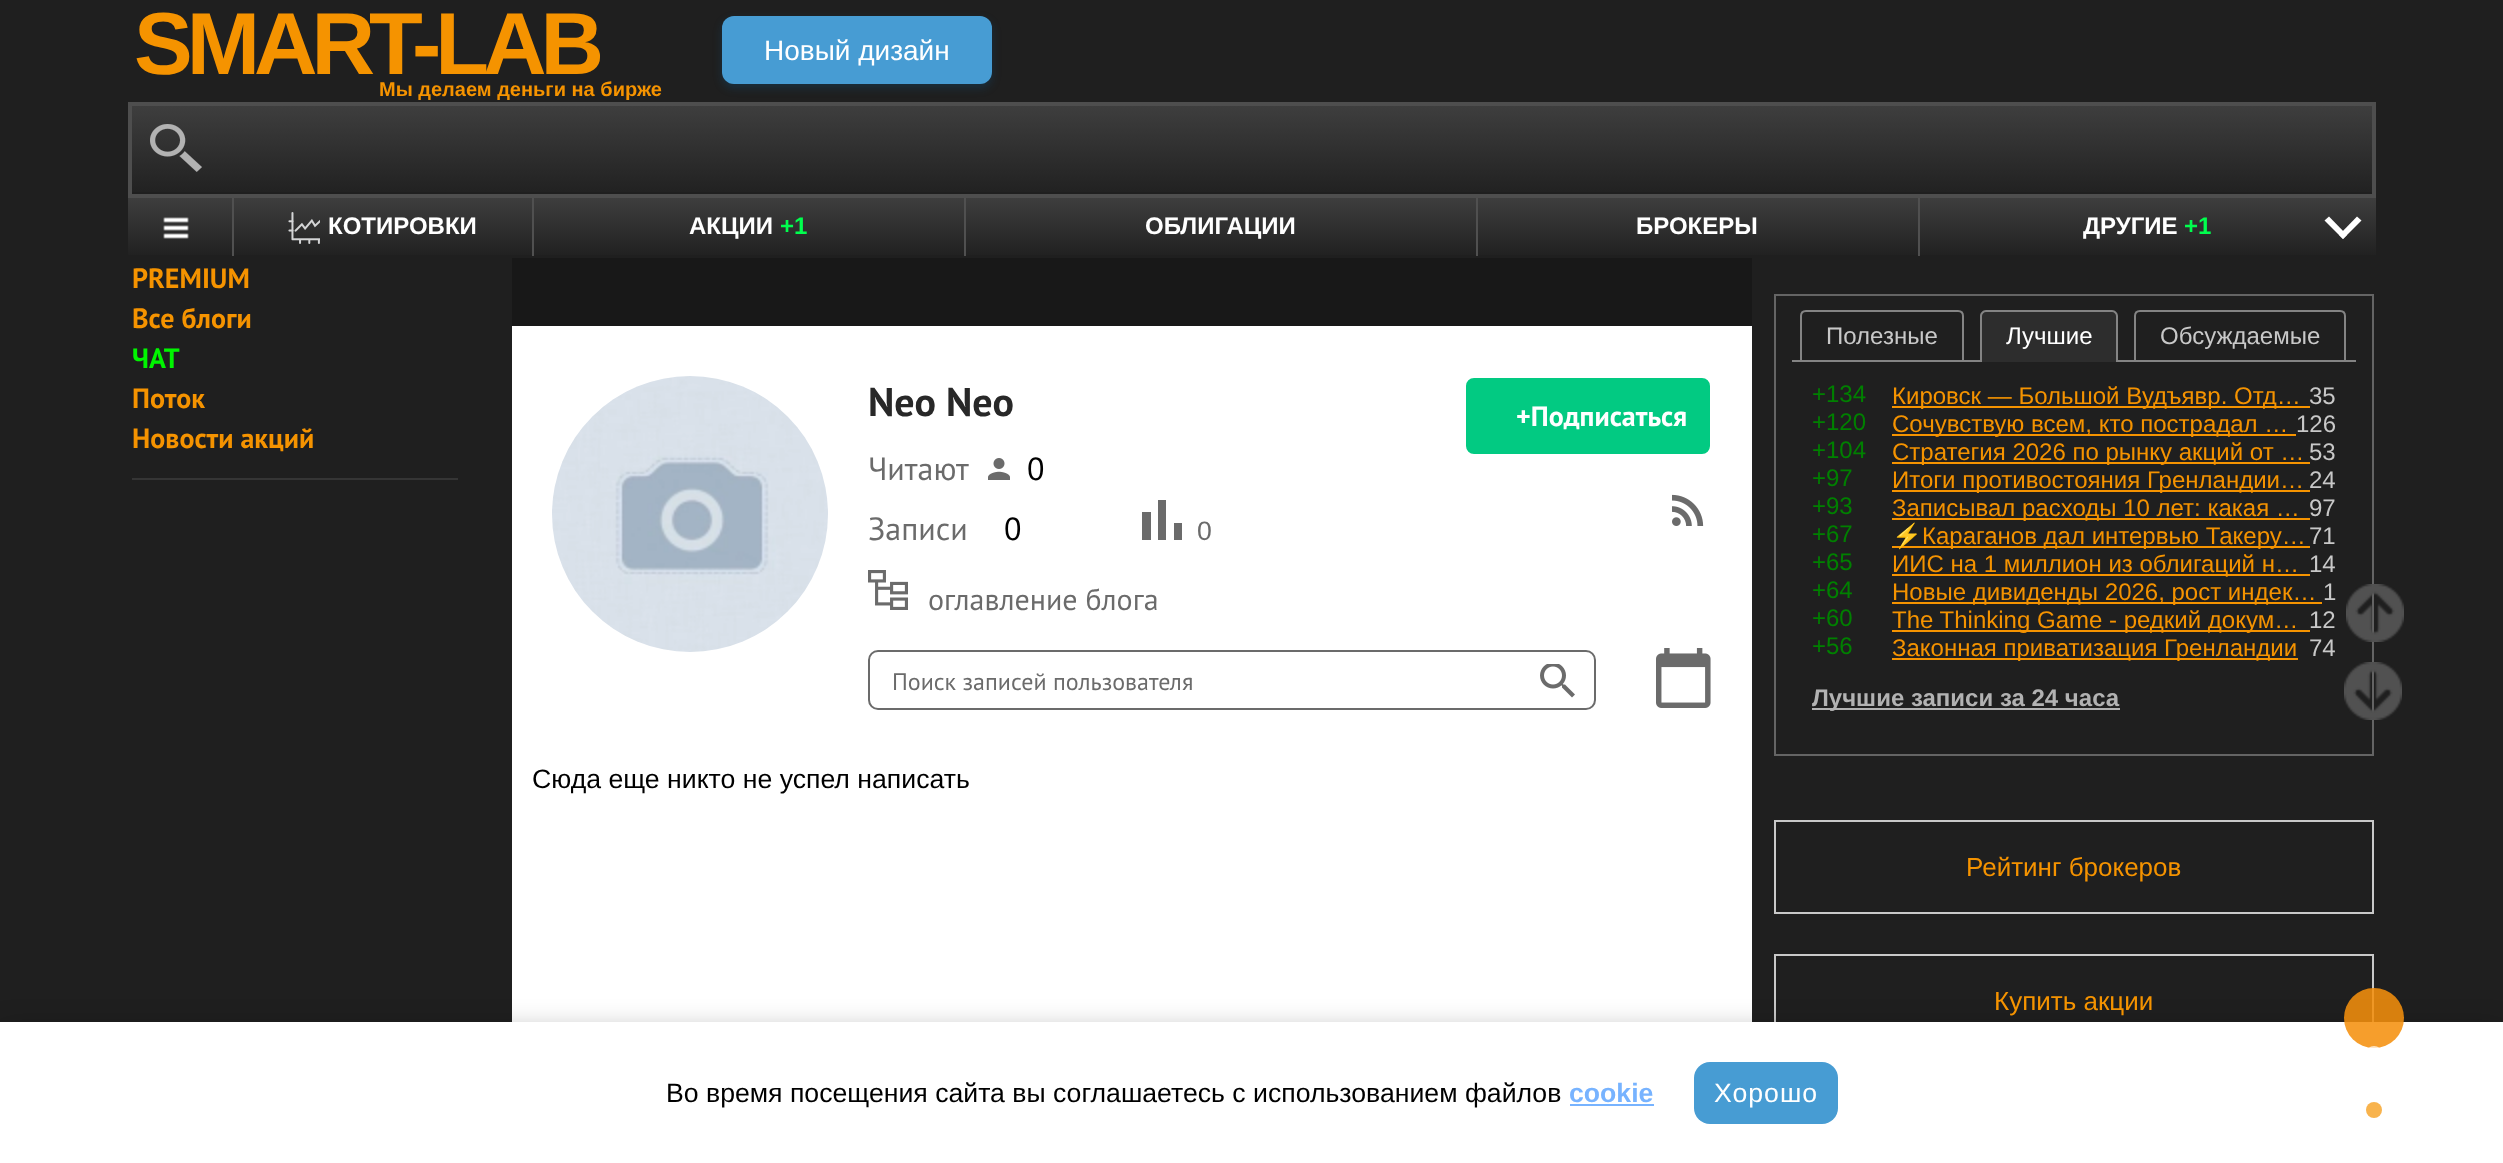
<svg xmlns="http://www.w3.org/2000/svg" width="2503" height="1163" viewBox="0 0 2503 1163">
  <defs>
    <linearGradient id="g1" gradientUnits="userSpaceOnUse" x1="1252" y1="106" x2="1252" y2="194"><stop offset="0" stop-color="#3e3e3e"/><stop offset="1" stop-color="#212121"/></linearGradient>
    <linearGradient id="g2" gradientUnits="userSpaceOnUse" x1="1252" y1="198" x2="1252" y2="256"><stop offset="0" stop-color="#3e3e3e"/><stop offset="1" stop-color="#212121"/></linearGradient>
    <clipPath id="clip1"><path d="M0 0h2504v100H0z"/></clipPath>
  </defs>
  <rect width="100%" height="100%" fill="#1f1f1f"/>
  <rect x="722" y="20" width="270" height="68" rx="12" fill="#0b54834d" filter="blur(4px)"/>
  <rect x="722" y="16" width="270" height="68" rx="12" fill="#479cd3"/>
  <path d="M1775 955h598v92H1775z" fill="none" stroke="#c8c8c8" stroke-width="2"/>
  <path d="M512 326h1240v696H512z" fill="#fff"/>
  <path d="M0 1032h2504v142H0z" fill="#00000059" filter="blur(15px)"/>
  <path d="M0 1022h2503v141H0z" fill="#fff"/>
  <circle cx="2374" cy="1018" r="30" fill="#f5900dde"/>
  <circle cx="2374" cy="1054" r="8" fill="#ffffffb3"/>
  <circle cx="2374" cy="1110" r="8" fill="#f8b34d"/>
  <path d="M132 106h2240v86H132z" fill="url(#g1)"/>
  <path d="M130 104h2244v92H130z" fill="none" stroke="#4e4e4e" stroke-width="4"/>
  <image x="150" y="124" width="52" height="48" href="img/1.png"/>
  <path d="M128 198h2248v57H128z" fill="url(#g2)"/>
  <image x="163" y="217" width="26" height="22" href="img/2.png"/>
  <path d="M232 198h2v58H232z" fill="#505050"/>
  <image x="288" y="212" width="32" height="32" href="img/3.png"/>
  <path d="M532 198h2v58H532z" fill="#505050"/>
  <path d="M964 198h2v58H964z" fill="#505050"/>
  <path d="M1476 198h2v58H1476z" fill="#505050"/>
  <path d="M1918 198h2v58H1918z" fill="#505050"/>
  <path d="M2357 216.5L2361.5 220.5L2343 239L2339 235Z" fill="#fff"/>
  <path d="M2329 216.5L2347 235L2343 239L2324.5 220.5Z" fill="#fff"/>
  <path d="M132 478h326v2H132z" fill="#353535"/>
  <path d="M512 258h1240v68H512z" fill="#181818"/>
  <image x="552" y="376" width="276" height="276" href="img/4.png"/>
  <image x="988" y="458" width="22" height="22" href="img/5.png"/>
  <path d="M1142 512H1151V540H1142ZM1158 500H1166V540H1158ZM1174 523H1182V540H1174Z" fill="#6b6b6b"/>
  <image x="868" y="570" width="40" height="40" href="img/6.png"/>
  <rect x="1465" y="377" width="246" height="78" rx="9" fill="#02ca82" stroke="#fff" stroke-width="2"/>
  <image x="1672" y="494" width="32" height="32" href="img/7.png"/>
  <rect x="869" y="651" width="726" height="58" rx="9" fill="none" stroke="#6b6b6b" stroke-width="2"/>
  <image x="1540" y="664" width="35" height="34" href="img/8.png"/>
  <image x="1656" y="648" width="55" height="60" href="img/9.png"/>
  <path d="M1775 295h598v460H1775z" fill="none" stroke="#646464" stroke-width="2"/>
  <path d="M1792 360h564v2H1792z" fill="#848484"/>
  <path d="M1806 311H1958C1961 311 1963 313 1963 316V361H1801V316C1801 313 1803 311 1806 311Z" fill="none" stroke="#848484" stroke-width="2"/>
  <path d="M1986 310H2112C2115.5 310 2118 312.5 2118 316V362H1980V316C1980 312.5 1982.5 310 1986 310Z" fill="#2d2d2d"/>
  <path d="M1986 310H2112C2115 310 2118 313 2118 316V362H1980V316C1980 313 1983 310 1986 310ZM1986 312H2112C2114 312 2116 314 2116 316V362H1982V316C1982 314 1984 312 1986 312Z" fill="#848484" fill-rule="evenodd"/>
  <path d="M2140 311H2340C2343 311 2345 313 2345 316V361H2135V316C2135 313 2137 311 2140 311Z" fill="none" stroke="#848484" stroke-width="2"/>
  <path d="M1892 406h418v2H1892z" fill="#f59300"/>
  <path d="M1892 434h404v2H1892z" fill="#f59300"/>
  <path d="M1892 462h418v2H1892z" fill="#f59300"/>
  <path d="M1892 490h418v2H1892z" fill="#f59300"/>
  <path d="M1892 518h418v2H1892z" fill="#f59300"/>
  <path d="M1892 546h418v2H1892z" fill="#f59300"/>
  <path d="M1892 574h418v2H1892z" fill="#f59300"/>
  <path d="M1892 602h430v2H1892z" fill="#f59300"/>
  <path d="M1892 630h418v2H1892z" fill="#f59300"/>
  <path d="M1892 658h406v2H1892z" fill="#f59300"/>
  <path d="M1812 708h308v2H1812z" fill="#b2b2b2"/>
  <path d="M1775 821h598v92H1775z" fill="none" stroke="#c8c8c8" stroke-width="2"/>
  <image x="2346" y="584" width="58" height="58" href="img/10.png"/>
  <image x="2344" y="662" width="58" height="58" href="img/11.png"/>
  <path d="M1570 1104h84v2H1570z" fill="#77b3ff"/>
  <rect x="1694" y="1062" width="144" height="62" rx="16" fill="#479cd3"/>
  <text x="134" y="74" font-family="Liberation Sans" font-size="88" font-weight="bold" letter-spacing="-6" fill="#f59300">SMART-LAB</text>
  <g clip-path="url(#clip1)">
    <text x="379" y="96" font-family="Liberation Sans" font-size="20" font-weight="bold" fill="#f59300">Мы делаем деньги на бирже</text>
  </g>
  <text x="764" y="60" font-family="Liberation Sans" font-size="28" fill="#fff">Новый дизайн</text>
  <g font-family="Liberation Sans" font-size="24" font-weight="bold" fill="#fff">
    <text x="328" y="234">КОТИРОВКИ</text>
    <text x="689" y="234">АКЦИИ</text>
  </g>
  <text x="780" y="234" font-family="Liberation Sans" font-size="24" font-weight="bold" fill="#00ff4e">+1</text>
  <g font-family="Liberation Sans" font-size="24" font-weight="bold" fill="#fff">
    <text x="1145" y="234">ОБЛИГАЦИИ</text>
    <text x="1636" y="234">БРОКЕРЫ</text>
    <text x="2083" y="234">ДРУГИЕ</text>
  </g>
  <text x="2184" y="234" font-family="Liberation Sans" font-size="24" font-weight="bold" fill="#00ff4e">+1</text>
  <g font-family="PT Sans" font-size="28" font-weight="bold" fill="#f59300">
    <text x="132" y="288">PREMIUM</text>
    <text x="132" y="328">Все блоги</text>
  </g>
  <text x="132" y="368" font-family="PT Sans" font-size="28" font-weight="bold" fill="#00f500">ЧАТ</text>
  <g font-family="PT Sans" font-size="28" font-weight="bold" fill="#f59300">
    <text x="132" y="408">Поток</text>
    <text x="132" y="448">Новости акций</text>
  </g>
  <text x="868" y="416" font-family="PT Sans" font-size="40" font-weight="bold" fill="#282828">Neo Neo</text>
  <text x="868" y="480" font-family="PT Sans" font-size="32" fill="#6b6b6b">Читают</text>
  <text x="1027" y="480" font-family="PT Sans" font-size="32" fill="#000">0</text>
  <text x="868" y="540" font-family="PT Sans" font-size="32" fill="#6b6b6b">Записи</text>
  <text x="1004" y="540" font-family="PT Sans" font-size="32" fill="#000">0</text>
  <text x="1197" y="540" font-family="Liberation Sans" font-size="26.65" fill="#6b6b6b">0</text>
  <text x="928" y="610" font-family="PT Sans" font-size="30" fill="#6b6b6b">оглавление блога</text>
  <text x="1516" y="426" font-family="PT Sans" font-size="28" font-weight="bold" fill="#fff">+Подписаться</text>
  <text x="892" y="690" font-family="PT Sans" font-size="24" fill="#6b6b6b">Поиск записей пользователя</text>
  <text x="532" y="788" font-family="Liberation Sans" font-size="26.65" fill="#000">Сюда еще никто не успел написать</text>
  <text x="1826" y="344" font-family="Liberation Sans" font-size="24" fill="#c8c8c8">Полезные</text>
  <text x="2006" y="344" font-family="Liberation Sans" font-size="24" fill="#fff">Лучшие</text>
  <text x="2160" y="344" font-family="Liberation Sans" font-size="24" fill="#c8c8c8">Обсуждаемые</text>
  <text x="1812" y="402" font-family="Liberation Sans" font-size="24" fill="#008000">+134</text>
  <text x="1892" y="404" font-family="Liberation Sans" font-size="24" fill="#f59300">Кировск — Большой Вудъявр. Отд…</text>
  <text x="2309" y="404" font-family="Liberation Sans" font-size="24" fill="#c8c8c8">35</text>
  <text x="1812" y="430" font-family="Liberation Sans" font-size="24" fill="#008000">+120</text>
  <text x="1892" y="432" font-family="Liberation Sans" font-size="24" fill="#f59300">Сочувствую всем, кто пострадал …</text>
  <text x="2296" y="432" font-family="Liberation Sans" font-size="24" fill="#c8c8c8">126</text>
  <text x="1812" y="458" font-family="Liberation Sans" font-size="24" fill="#008000">+104</text>
  <text x="1892" y="460" font-family="Liberation Sans" font-size="24" fill="#f59300">Стратегия 2026 по рынку акций от …</text>
  <text x="2309" y="460" font-family="Liberation Sans" font-size="24" fill="#c8c8c8">53</text>
  <text x="1812" y="486" font-family="Liberation Sans" font-size="24" fill="#008000">+97</text>
  <text x="1892" y="488" font-family="Liberation Sans" font-size="24" fill="#f59300">Итоги противостояния Гренландии…</text>
  <text x="2309" y="488" font-family="Liberation Sans" font-size="24" fill="#c8c8c8">24</text>
  <text x="1812" y="514" font-family="Liberation Sans" font-size="24" fill="#008000">+93</text>
  <text x="1892" y="516" font-family="Liberation Sans" font-size="24" fill="#f59300">Записывал расходы 10 лет: какая …</text>
  <text x="2309" y="516" font-family="Liberation Sans" font-size="24" fill="#c8c8c8">97</text>
  <text x="1812" y="542" font-family="Liberation Sans" font-size="24" fill="#008000">+67</text>
  <text x="1892" y="544" font-family="Noto Color Emoji" font-size="24" fill="#f59300">⚡</text>
  <text x="1922" y="544" font-family="Liberation Sans" font-size="24" fill="#f59300">Караганов дал интервью Такеру…</text>
  <text x="2309" y="544" font-family="Liberation Sans" font-size="24" fill="#c8c8c8">71</text>
  <text x="1812" y="570" font-family="Liberation Sans" font-size="24" fill="#008000">+65</text>
  <text x="1892" y="572" font-family="Liberation Sans" font-size="24" fill="#f59300">ИИС на 1 миллион из облигаций н…</text>
  <text x="2309" y="572" font-family="Liberation Sans" font-size="24" fill="#c8c8c8">14</text>
  <text x="1812" y="598" font-family="Liberation Sans" font-size="24" fill="#008000">+64</text>
  <text x="1892" y="600" font-family="Liberation Sans" font-size="24" fill="#f59300">Новые дивиденды 2026, рост индек…</text>
  <text x="2323" y="600" font-family="Liberation Sans" font-size="24" fill="#c8c8c8">1</text>
  <text x="1812" y="626" font-family="Liberation Sans" font-size="24" fill="#008000">+60</text>
  <text x="1892" y="628" font-family="Liberation Sans" font-size="24" fill="#f59300">The Thinking Game - редкий докум…</text>
  <text x="2309" y="628" font-family="Liberation Sans" font-size="24" fill="#c8c8c8">12</text>
  <text x="1812" y="654" font-family="Liberation Sans" font-size="24" fill="#008000">+56</text>
  <text x="1892" y="656" font-family="Liberation Sans" font-size="24" fill="#f59300">Законная приватизация Гренландии</text>
  <text x="2309" y="656" font-family="Liberation Sans" font-size="24" fill="#c8c8c8">74</text>
  <text x="1812" y="706" font-family="Liberation Sans" font-size="24" font-weight="bold" fill="#b2b2b2">Лучшие записи за 24 часа</text>
  <g font-family="Liberation Sans" font-size="26" fill="#f59300">
    <text x="1966" y="876">Рейтинг брокеров</text>
    <text x="1994" y="1010">Купить акции</text>
  </g>
  <text x="666" y="1102" font-family="Liberation Sans" font-size="26.65" fill="#000">Во время посещения сайта вы соглашаетесь с использованием файлов</text>
  <text x="1569" y="1102" font-family="Liberation Sans" font-size="26.65" font-weight="bold" fill="#77b3ff">cookie</text>
  <text x="1714" y="1102" font-family="Liberation Sans" font-size="26.65" letter-spacing="1" fill="#fff">Хорошо</text>
</svg>
